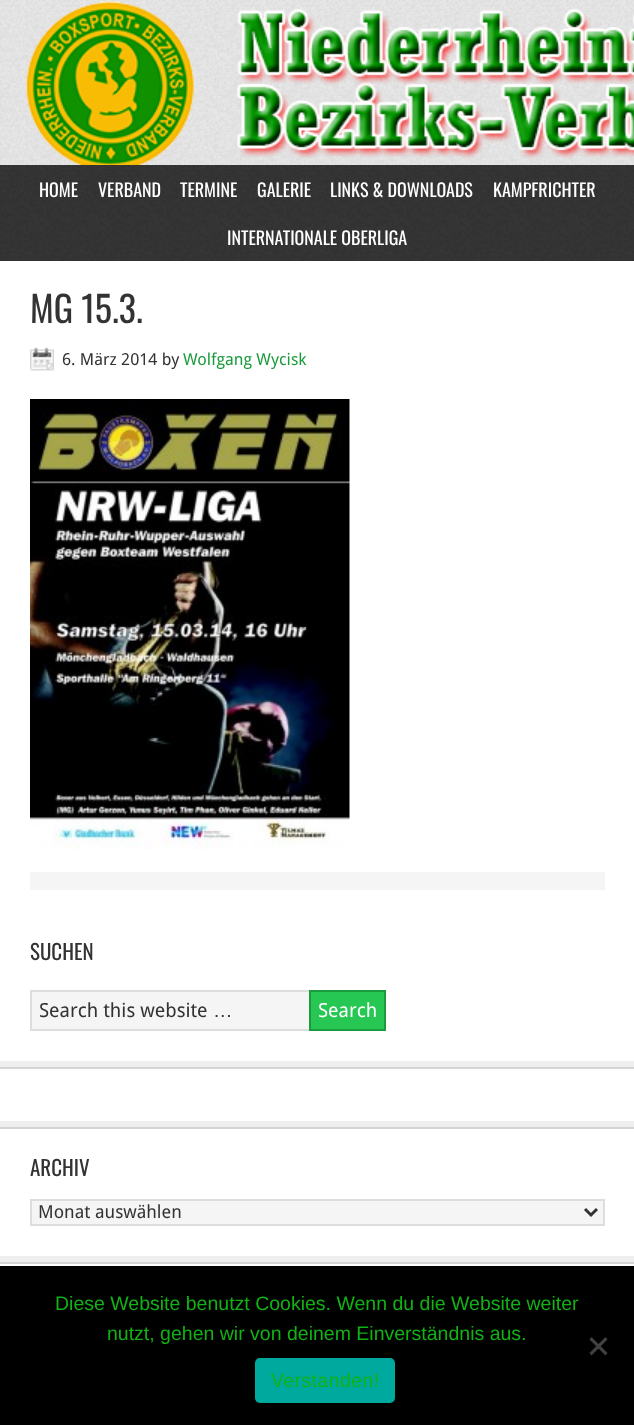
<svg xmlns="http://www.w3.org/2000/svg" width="634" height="1425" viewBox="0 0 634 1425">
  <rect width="100%" height="100%" fill="#fff"/>
  <image x="0" y="0" width="634" height="165" href="img/1.png"/>
  <image x="25" y="1" width="609" height="164" href="img/2.png"/>
  <image x="0" y="165" width="634" height="96" href="img/3.png"/>
  <image x="30" y="347" width="24" height="24" href="img/4.png"/>
  <image x="30" y="399" width="320" height="450" href="img/5.png"/>
  <path d="M30 872h575v18H30z" fill="#f5f5f5"/>
  <path d="M0 1067h634v2H0z" fill="#d5d5d5"/>
  <path d="M0 1061h634v6H0z" fill="#eee"/>
  <path d="M32 992h277v37H32z" fill="#f5f5f5"/>
  <path d="M31 991h286v39H31z" fill="none" stroke="#ddd" stroke-width="2"/>
  <path d="M310 991h75v39H310z" fill="#27c753" stroke="#1c9b3d" stroke-width="2"/>
  <path d="M0 1127h634v2H0z" fill="#d5d5d5"/>
  <path d="M0 1121h634v6H0z" fill="#eee"/>
  <path d="M0 1262h634v2H0z" fill="#d5d5d5"/>
  <path d="M0 1256h634v6H0z" fill="#eee"/>
  <path d="M31 1200h573v25H31z" fill="#f5f5f5" stroke="#ddd" stroke-width="2"/>
  <path d="M585 1209L591 1215L597 1209" fill="none" stroke="#333" stroke-width="3"/>
  <path d="M0 1266h634v159H0z" fill="#000"/>
  <path d="M605.5 1337L607.5 1339.5L591.5 1355.5L589.5 1353Z" fill="#404040"/>
  <path d="M589.5 1339.5L591.5 1337L607.5 1353L605.5 1355.5Z" fill="#404040"/>
  <rect x="255" y="1358" width="140" height="45" rx="5" fill="#00a99d"/>
  <g font-family="Oswald" font-size="18" fill="#fff">
    <text x="39" y="197">HOME</text>
    <text x="98" y="197">VERBAND</text>
    <text x="180" y="197">TERMINE</text>
    <text x="257" y="197">GALERIE</text>
    <text x="330" y="197">LINKS &amp; DOWNLOADS</text>
    <text x="493" y="197">KAMPFRICHTER</text>
    <text x="227" y="245">INTERNATIONALE OBERLIGA</text>
  </g>
  <text x="30" y="323" font-family="Oswald" font-size="36" fill="#333">MG 15.3.</text>
  <text x="62" y="365" font-family="Droid Sans" font-size="16.5" fill="#333">6. März 2014 by</text>
  <text x="183" y="365" font-family="Droid Sans" font-size="16.5" fill="#1c9b3d">Wolfgang Wycisk</text>
  <text x="30" y="960" font-family="Oswald" font-size="21" fill="#333">SUCHEN</text>
  <text x="39" y="1017" font-family="Droid Sans" font-size="19.5" fill="#333">Search this website</text>
  <text x="213" y="1017" font-family="Liberation Sans" font-size="19.5" fill="#333">…</text>
  <text x="318" y="1017" font-family="Droid Sans" font-size="19.5" fill="#fff">Search</text>
  <text x="30" y="1176" font-family="Oswald" font-size="21" fill="#333">ARCHIV</text>
  <text x="38" y="1218" font-family="Droid Sans" font-size="18" fill="#333">Monat auswählen</text>
  <g font-family="Liberation Sans" font-size="19.5" fill="#11b214">
    <text x="55" y="1310">Diese Website benutzt Cookies. Wenn du die Website weiter</text>
    <text x="107" y="1340">nutzt, gehen wir von deinem Einverständnis aus.</text>
  </g>
  <text x="271" y="1387" font-family="Liberation Sans" font-size="19.5" letter-spacing="0.4" fill="#11b214">Verstanden!</text>
</svg>
